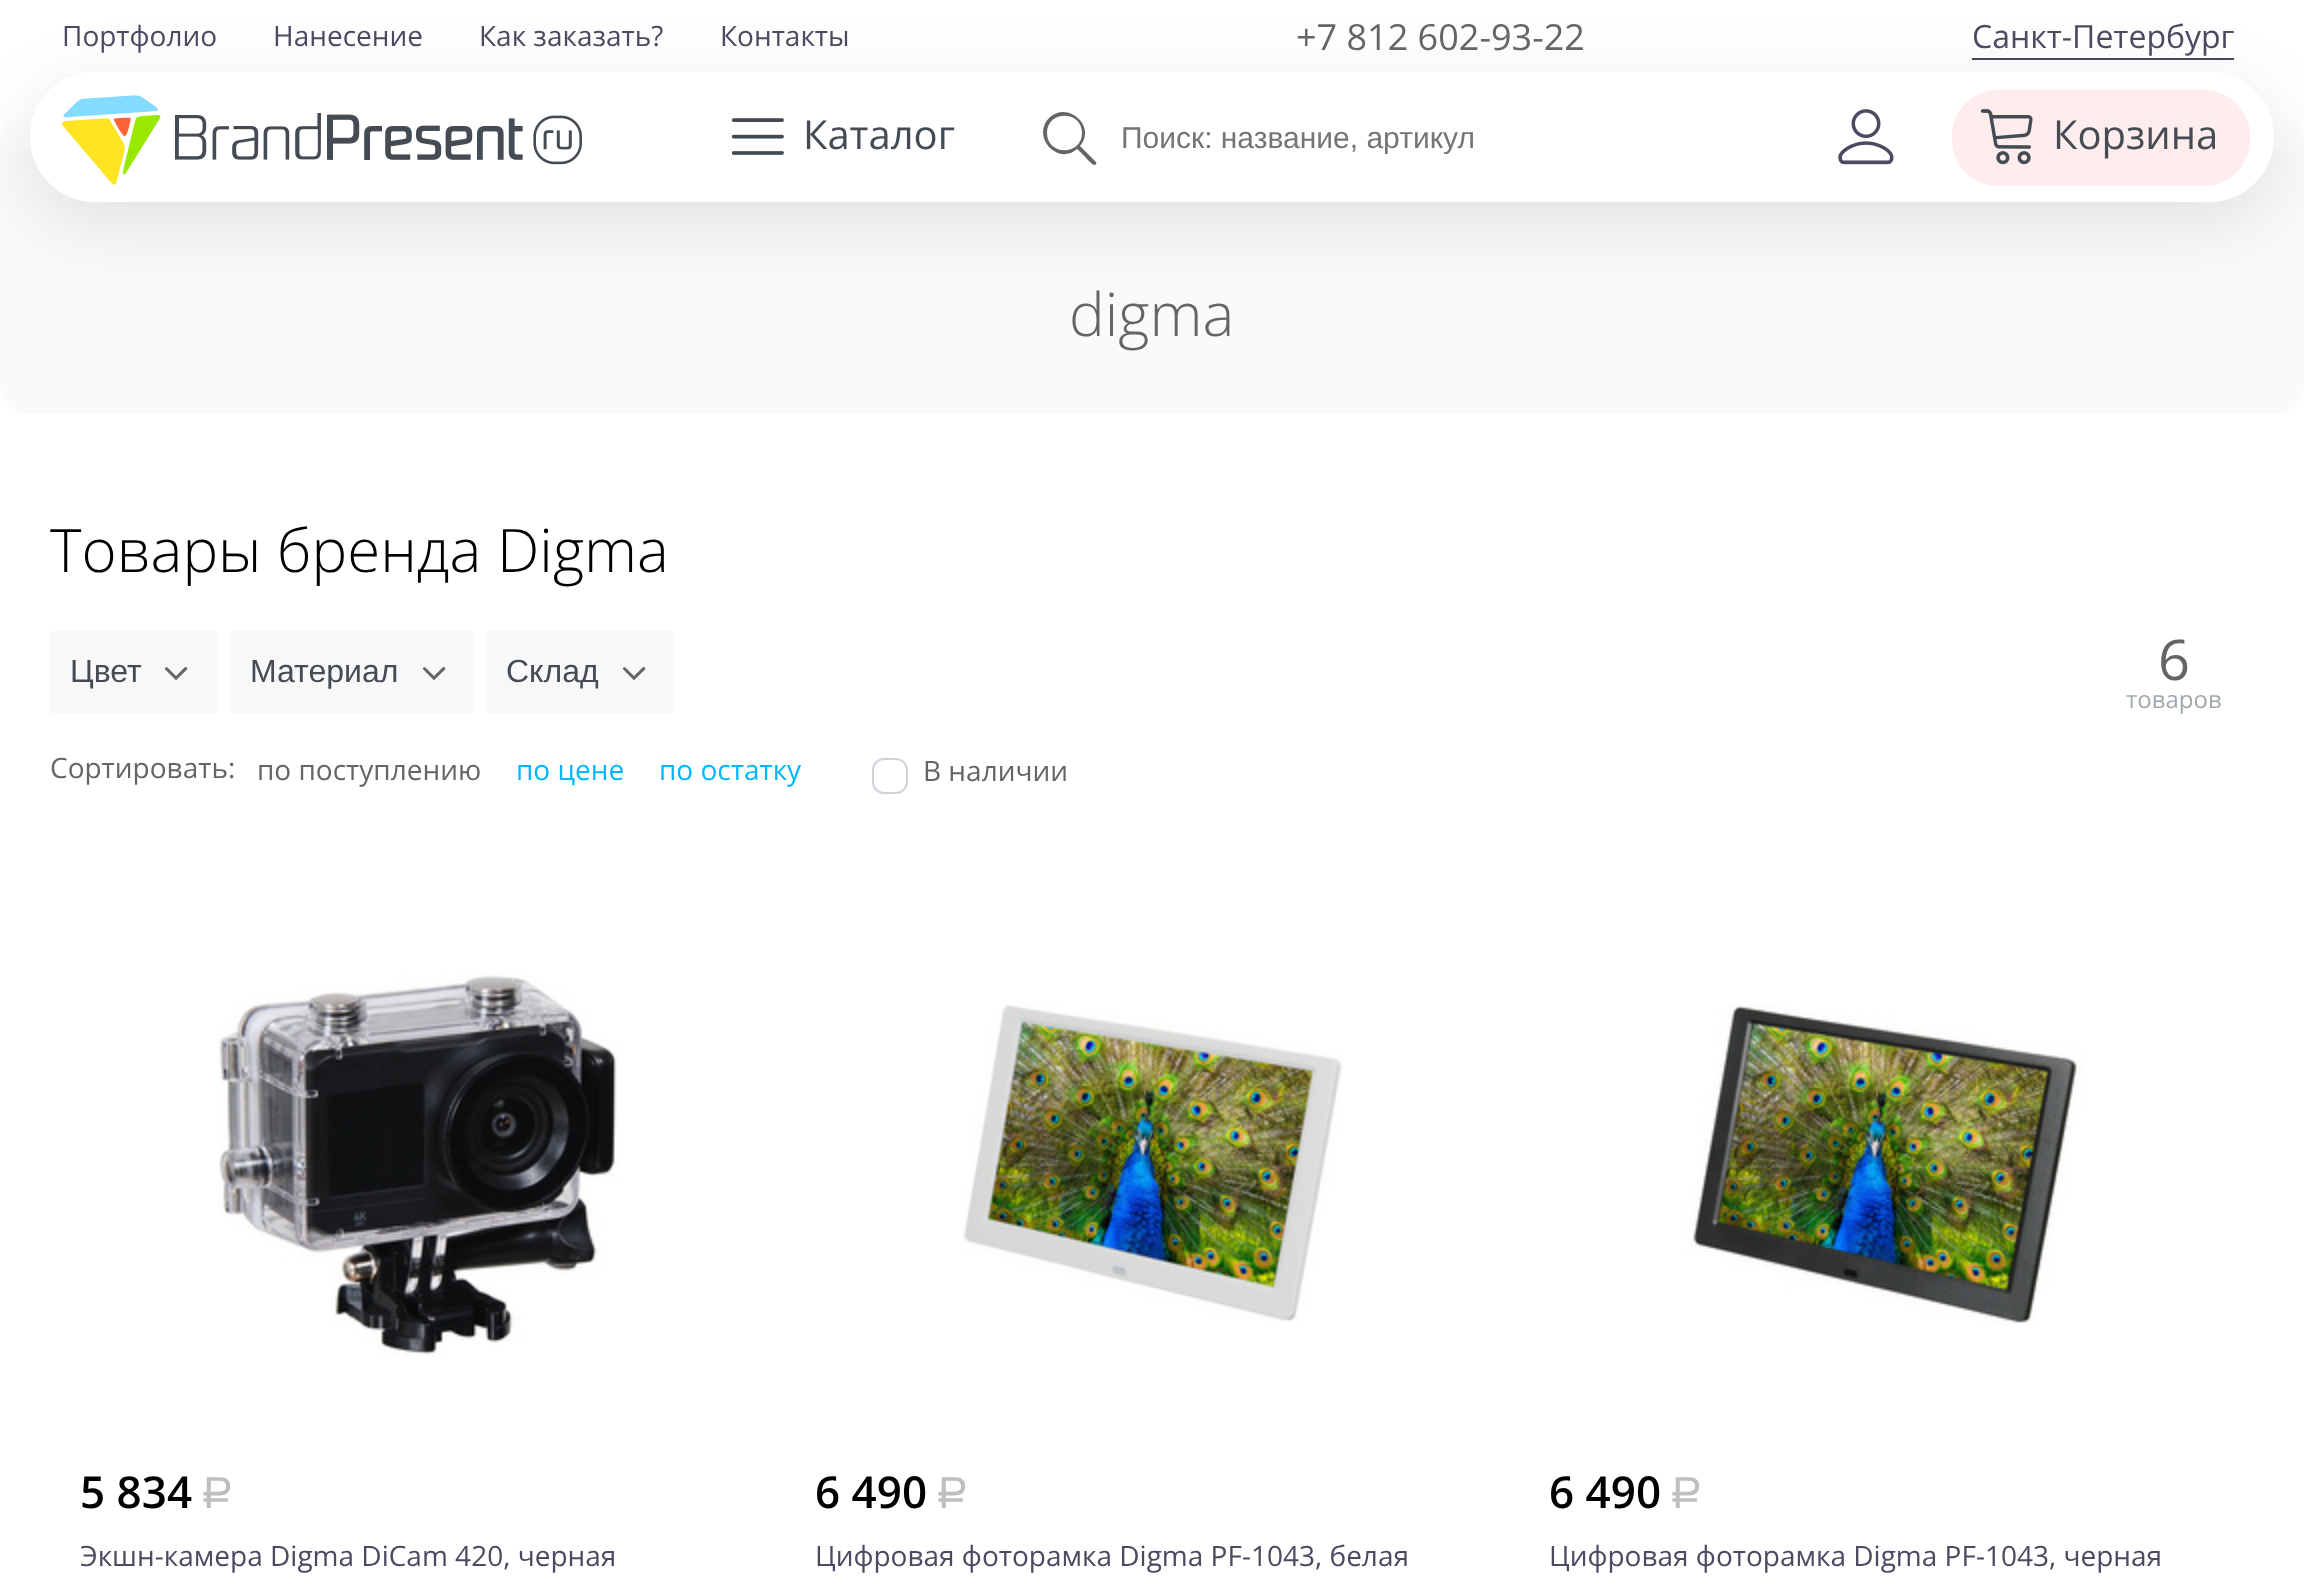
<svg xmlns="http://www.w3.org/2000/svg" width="2304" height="1587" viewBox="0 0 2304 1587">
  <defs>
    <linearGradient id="g1" gradientUnits="userSpaceOnUse" x1="1152" y1="216" x2="1152" y2="0"><stop offset="0" stop-color="#fff" stop-opacity="0"/><stop offset="0.7" stop-color="#fff"/></linearGradient>
    <clipPath id="clip1"><path d="M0 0H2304V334H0ZM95 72H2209C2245 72 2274 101 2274 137C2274 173 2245 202 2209 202H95C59 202 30 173 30 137C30 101 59 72 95 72Z" clip-rule="evenodd"/></clipPath>
    <clipPath id="clip2"><path d="M1120 120h542v34H1120z"/></clipPath>
  </defs>
  <rect width="100%" height="100%" fill="#fff"/>
  <rect y="112" width="2304" height="302" rx="30" fill="#f9fafa"/>
  <path d="M0 112h2304v38H0z" fill="url(#g1)"/>
  <path d="M1972 58h262v2H1972z" fill="#454b53"/>
  <g clip-path="url(#clip1)">
    <rect x="30" y="92" width="2244" height="130" rx="65" fill="#0000001a" filter="blur(37px)"/>
  </g>
  <rect x="30" y="72" width="2244" height="130" rx="65" fill="#fffffff2"/>
  <image x="62" y="95" width="520" height="90" href="img/1.png"/>
  <image x="731" y="118" width="53" height="37" href="img/2.png"/>
  <path d="M1096 162L1080 146C1097 127 1068 100 1049 118C1031 137 1058 166 1077 149C1080 151 1092 165 1094 165C1096 165 1097 163 1096 162ZM1047 133C1047 110 1082 110 1082 133C1082 156 1047 156 1047 133Z" fill="#656565"/>
  <image x="1838" y="109" width="56" height="56" href="img/3.png"/>
  <rect x="1952" y="90" width="298" height="96" rx="46" fill="#feedec"/>
  <image x="1981" y="109" width="52" height="56" href="img/4.png"/>
  <rect x="50" y="630" width="168" height="84" rx="6" fill="#f8f8f8"/>
  <image x="165" y="667" width="23" height="14" href="img/5.png"/>
  <rect x="230" y="630" width="244" height="84" rx="6" fill="#f8f8f8"/>
  <image x="423" y="667" width="23" height="14" href="img/5.png"/>
  <rect x="486" y="630" width="188" height="84" rx="6" fill="#f8f8f8"/>
  <image x="623" y="667" width="23" height="14" href="img/5.png"/>
  <rect x="873" y="759" width="34" height="34" rx="11" fill="none" stroke="#ced4da" stroke-width="2"/>
  <image x="218" y="974" width="400" height="382" href="img/6.png"/>
  <image x="963" y="1005" width="380" height="317" href="img/7.png"/>
  <image x="1686" y="1005" width="398" height="320" href="img/8.png"/>
  <g font-family="Open Sans" font-size="28" fill="#4c4961">
    <text x="62" y="46">Портфолио</text>
    <text x="273" y="46">Нанесение</text>
    <text x="479" y="46">Как заказать?</text>
    <text x="720" y="46">Контакты</text>
  </g>
  <text x="1296" y="50" font-family="Open Sans" font-size="36" fill="#656565">+7 812 602-93-22</text>
  <text x="1972" y="48" font-family="Open Sans" font-size="32" fill="#4c4961">Санкт-Петербург</text>
  <text x="803" y="149" font-family="Open Sans" font-size="40" fill="#454b53">Каталог</text>
  <g clip-path="url(#clip2)">
    <text x="1121" y="148" font-family="Liberation Sans" font-size="30" fill="#757575">Поиск: название, артикул</text>
  </g>
  <text x="2053" y="149" font-family="Open Sans" font-size="40" fill="#454b53">Корзина</text>
  <text x="1069" y="336" font-family="Open Sans" font-size="60" font-weight="300" fill="#656565">digma</text>
  <text x="50" y="572" font-family="Open Sans" font-size="60" font-weight="300" fill="#000">Товары бренда Digma</text>
  <g font-family="Liberation Sans" font-size="32" fill="#454b53">
    <text x="70" y="682">Цвет</text>
    <text x="250" y="682">Материал</text>
    <text x="506" y="682">Склад</text>
  </g>
  <g font-family="Open Sans" font-size="28" fill="#656565">
    <text x="50" y="778">Сортировать:</text>
    <text x="257" y="780">по поступлению</text>
  </g>
  <g font-family="Open Sans" font-size="28" fill="#00b7ff">
    <text x="516" y="780">по цене</text>
    <text x="659" y="780">по остатку</text>
  </g>
  <text x="923" y="781" font-family="Open Sans" font-size="28" fill="#656565">В наличии</text>
  <text x="2158" y="680" font-family="Open Sans" font-size="56" fill="#656565">6</text>
  <text x="2126" y="708" font-family="Open Sans" font-size="24" fill="#a1a8ac">товаров</text>
  <text x="80" y="1508" font-family="Open Sans" font-size="44" font-weight="600" fill="#000">5 834</text>
  <text x="190" y="1508" font-family="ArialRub" font-size="44" fill="#bfbfbf">руб.</text>
  <text x="80" y="1566" font-family="Open Sans" font-size="28" fill="#4c4961">Экшн-камера Digma DiCam 420, черная</text>
  <text x="815" y="1508" font-family="Open Sans" font-size="44" font-weight="600" fill="#000">6 490</text>
  <text x="925" y="1508" font-family="ArialRub" font-size="44" fill="#bfbfbf">руб.</text>
  <text x="815" y="1566" font-family="Open Sans" font-size="28" fill="#4c4961">Цифровая фоторамка Digma PF-1043, белая</text>
  <text x="1549" y="1508" font-family="Open Sans" font-size="44" font-weight="600" fill="#000">6 490</text>
  <text x="1659" y="1508" font-family="ArialRub" font-size="44" fill="#bfbfbf">руб.</text>
  <text x="1549" y="1566" font-family="Open Sans" font-size="28" fill="#4c4961">Цифровая фоторамка Digma PF-1043, черная</text>
</svg>
